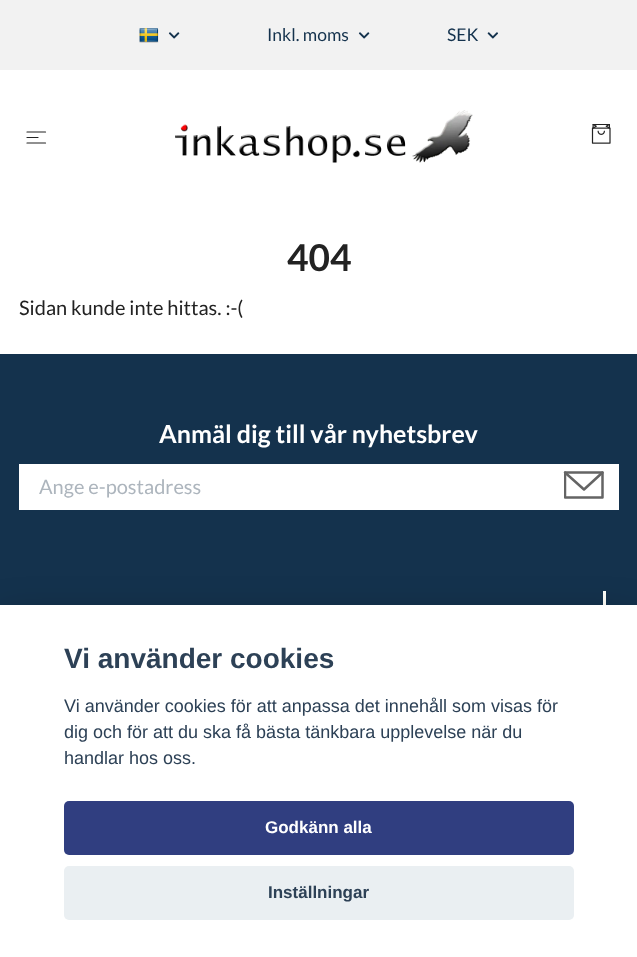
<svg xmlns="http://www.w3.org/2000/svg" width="637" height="957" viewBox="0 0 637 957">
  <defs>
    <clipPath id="clip1"><path d="M564 465h40v40H564z"/></clipPath>
  </defs>
  <rect width="100%" height="100%" fill="#fff"/>
  <path d="M0 0h637v70H0z" fill="#f2f2f2"/>
  <image x="139" y="28" width="20" height="15" href="img/1.png"/>
  <image x="168" y="32" width="12" height="7" href="img/2.png"/>
  <image x="358" y="32" width="12" height="7" href="img/2.png"/>
  <image x="487" y="32" width="11" height="7" href="img/3.png"/>
  <path d="M27 132H45.5M27 137.5H38M27 143H45.5" fill="none" stroke="#222" stroke-width="1.2" stroke-linecap="round" stroke-linejoin="round"/>
  <image x="175" y="110" width="298" height="53" href="img/4.png"/>
  <image x="591" y="124" width="20" height="20" href="img/5.png"/>
  <path d="M0 354h637v251H0z" fill="#14324d"/>
  <path d="M19 464h600v46H19z" fill="#fff"/>
  <path d="M565 472.5L584 489.5L602.5 472.5" fill="none" stroke="#646464" stroke-width="2.5" stroke-linecap="round" stroke-linejoin="round"/>
  <g clip-path="url(#clip1)">
    <path d="M565 472.5H602.5V497.5H565Z" fill="none" stroke="#646464" stroke-width="2.5" stroke-linecap="round" stroke-linejoin="round"/>
  </g>
  <path d="M603 591h3v14H603z" fill="#fffffa"/>
  <path d="M0 618h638v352H0z" fill="#02020347" filter="blur(19px)"/>
  <path d="M0 605h637v352H0z" fill="#fff"/>
  <rect x="64" y="801" width="510" height="54" rx="5" fill="#303e80"/>
  <rect x="64" y="866" width="510" height="54" rx="5" fill="#eaeff2"/>
  <g font-family="Lato" font-size="17.5" fill="#14324d">
    <text x="267" y="41">Inkl. moms</text>
    <text x="447" y="41">SEK</text>
  </g>
  <text x="287" y="271" font-family="Lato" font-size="37" font-weight="bold" fill="#222">404</text>
  <text x="19" y="315" font-family="Lato" font-size="20" fill="#222">Sidan kunde inte hittas. :-(</text>
  <text x="159" y="443" font-family="Lato" font-size="25" font-weight="bold" fill="#fff">Anmäl dig till vår nyhetsbrev</text>
  <text x="39" y="494" font-family="Lato" font-size="20" fill="#adb5bd">Ange e-postadress</text>
  <text x="64" y="668" font-family="Liberation Sans" font-size="28" font-weight="bold" fill="#2d4156">Vi använder cookies</text>
  <g font-family="Liberation Sans" font-size="18" fill="#2d4156">
    <text x="64" y="712">Vi använder cookies för att anpassa det innehåll som visas för</text>
    <text x="64" y="738">dig och för att du ska få bästa tänkbara upplevelse när du</text>
    <text x="64" y="764">handlar hos oss.</text>
  </g>
  <text x="265" y="833" font-family="Liberation Sans" font-size="17" font-weight="bold" fill="#fff">Godkänn alla</text>
  <text x="268" y="898" font-family="Liberation Sans" font-size="17" font-weight="bold" fill="#2d4156">Inställningar</text>
</svg>
